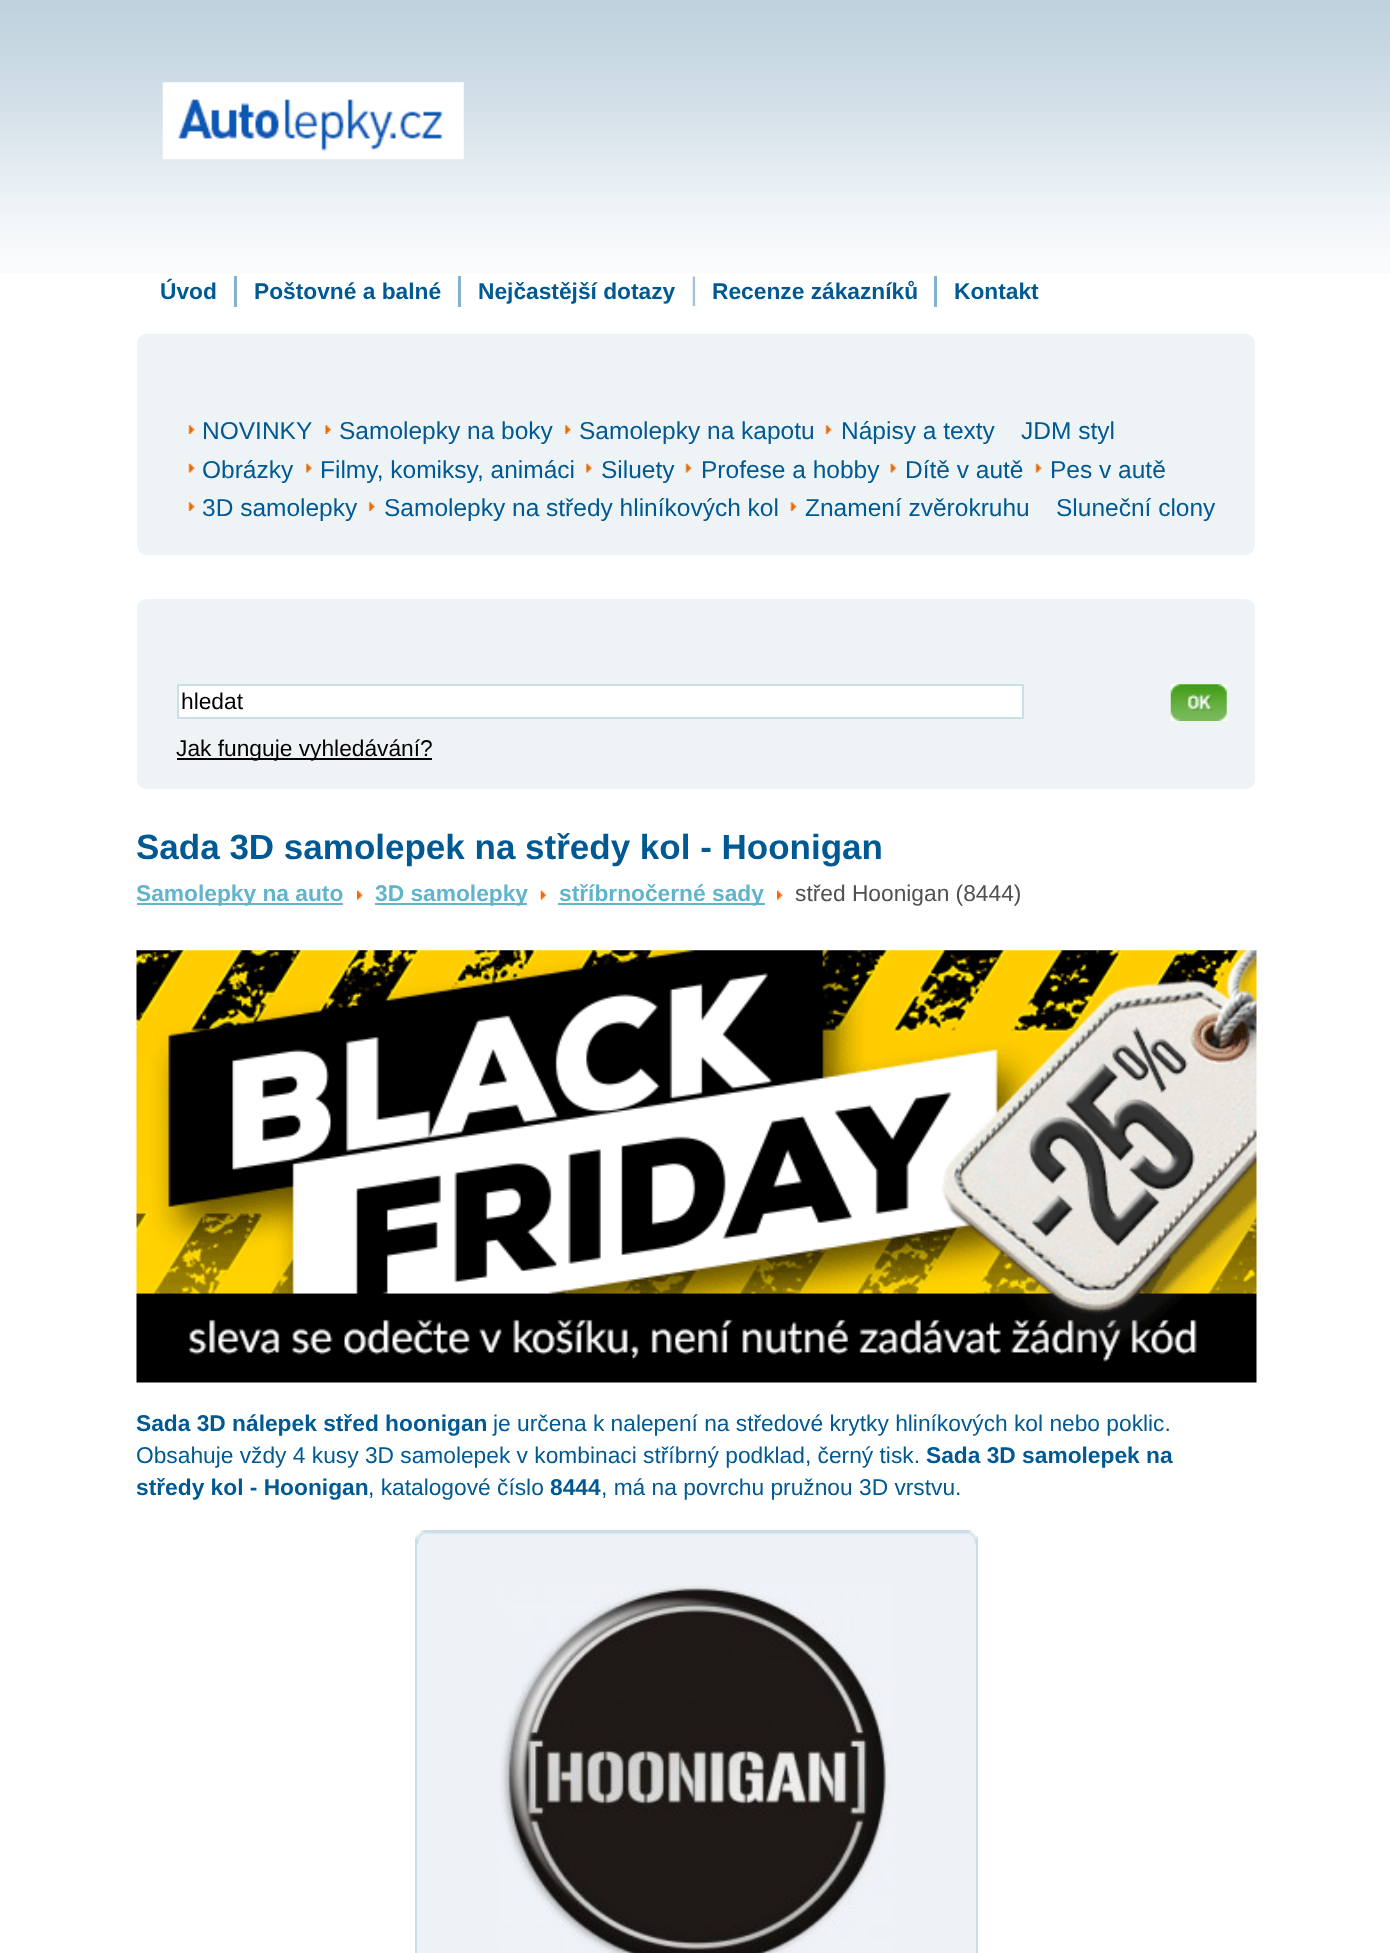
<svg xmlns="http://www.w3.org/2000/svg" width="1390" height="1953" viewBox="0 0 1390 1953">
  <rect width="100%" height="100%" fill="#fff"/>
  <image x="0" y="0" width="1390" height="273" href="img/1.png"/>
  <image x="162" y="82" width="302" height="78" href="img/2.png"/>
  <path d="M234 276h3v31H234z" fill="#84b2ce"/>
  <path d="M458 276h3v31H458z" fill="#84b2ce"/>
  <image x="692" y="276" width="4" height="31" href="img/3.png"/>
  <path d="M934 276h3v31H934z" fill="#84b2ce"/>
  <rect x="137" y="334" width="1118" height="221" rx="9" fill="#eef4f6"/>
  <image x="188" y="425" width="7" height="9" href="img/4.png"/>
  <image x="325" y="425" width="7" height="9" href="img/5.png"/>
  <image x="564" y="425" width="7" height="9" href="img/6.png"/>
  <image x="825" y="425" width="7" height="9" href="img/7.png"/>
  <image x="188" y="463" width="7" height="10" href="img/8.png"/>
  <image x="305" y="463" width="7" height="10" href="img/9.png"/>
  <image x="585" y="463" width="7" height="10" href="img/9.png"/>
  <image x="685" y="463" width="7" height="10" href="img/10.png"/>
  <image x="890" y="463" width="7" height="10" href="img/11.png"/>
  <image x="1035" y="463" width="7" height="10" href="img/10.png"/>
  <image x="188" y="502" width="7" height="9" href="img/4.png"/>
  <image x="368" y="502" width="7" height="9" href="img/12.png"/>
  <image x="790" y="502" width="7" height="9" href="img/7.png"/>
  <rect x="137" y="599" width="1118" height="190" rx="9" fill="#eef4f6"/>
  <path d="M178 685h845v33H178z" fill="#fff" stroke="#cbdfe7" stroke-width="2"/>
  <path d="M1171 684h56v37H1171z" fill="#fff"/>
  <image x="1170" y="684" width="57" height="37" href="img/13.png"/>
  <path d="M177 758h255v2H177z" fill="#000"/>
  <path d="M137 903h206v2H137z" fill="#60b5cd"/>
  <image x="357" y="890" width="6" height="10" href="img/14.png"/>
  <path d="M375 903h152v2H375z" fill="#60b5cd"/>
  <image x="540" y="890" width="6" height="10" href="img/15.png"/>
  <path d="M558 903h207v2H558z" fill="#60b5cd"/>
  <image x="777" y="890" width="6" height="10" href="img/14.png"/>
  <image x="136" y="950" width="1121" height="433" href="img/16.png"/>
  <rect x="416" y="1531" width="561" height="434" rx="10" fill="#eef2f6" stroke="#cadee5" stroke-width="2"/>
  <image x="416" y="1531" width="561" height="13" href="img/17.png"/>
  <image x="500" y="1585" width="392" height="368" href="img/18.png"/>
  <g font-family="Liberation Sans" font-size="22.75" font-weight="bold" fill="#005992">
    <text x="160" y="299">Úvod</text>
    <text x="254" y="299">Poštovné a balné</text>
    <text x="478" y="299">Nejčastější dotazy</text>
    <text x="712" y="299">Recenze zákazníků</text>
    <text x="954" y="299">Kontakt</text>
  </g>
  <g font-family="Liberation Sans" font-size="24.5" fill="#005992">
    <text x="202" y="439">NOVINKY</text>
    <text x="339" y="439">Samolepky na boky</text>
    <text x="579" y="439">Samolepky na kapotu</text>
    <text x="841" y="439">Nápisy a texty</text>
    <text x="1021" y="439">JDM styl</text>
    <text x="202" y="478">Obrázky</text>
    <text x="320" y="478">Filmy, komiksy, animáci</text>
    <text x="601" y="478">Siluety</text>
    <text x="701" y="478">Profese a hobby</text>
    <text x="905" y="478">Dítě v autě</text>
    <text x="1050" y="478">Pes v autě</text>
    <text x="202" y="516">3D samolepky</text>
    <text x="384" y="516">Samolepky na středy hliníkových kol</text>
    <text x="805" y="516">Znamení zvěrokruhu</text>
    <text x="1056" y="516">Sluneční clony</text>
  </g>
  <g font-family="Liberation Sans" font-size="22.75" fill="#000">
    <text x="181" y="709">hledat</text>
    <text x="176" y="756">Jak funguje vyhledávání?</text>
  </g>
  <text x="136" y="859" font-family="Liberation Sans" font-size="35" font-weight="bold" fill="#005992">Sada 3D samolepek na středy kol - Hoonigan</text>
  <g font-family="Liberation Sans" font-size="22.75" font-weight="bold" fill="#60b5cd">
    <text x="136" y="901">Samolepky na auto</text>
    <text x="375" y="901">3D samolepky</text>
    <text x="559" y="901">stříbrnočerné sady</text>
  </g>
  <text x="795" y="901" font-family="Liberation Sans" font-size="22.75" fill="#505050">střed Hoonigan (8444)</text>
  <text x="136" y="1431" font-family="Liberation Sans" font-size="22.75" font-weight="bold" fill="#005992">Sada 3D nálepek střed hoonigan</text>
  <g font-family="Liberation Sans" font-size="22.75" fill="#005992">
    <text x="493" y="1431">je určena k nalepení na středové krytky hliníkových kol nebo poklic.</text>
    <text x="136" y="1463">Obsahuje vždy 4 kusy 3D samolepek v kombinaci stříbrný podklad, černý tisk.</text>
  </g>
  <g font-family="Liberation Sans" font-size="22.75" font-weight="bold" fill="#005992">
    <text x="926" y="1463">Sada 3D samolepek na</text>
    <text x="136" y="1495">středy kol - Hoonigan</text>
  </g>
  <text x="368" y="1495" font-family="Liberation Sans" font-size="22.75" fill="#005992">, katalogové číslo</text>
  <text x="550" y="1495" font-family="Liberation Sans" font-size="22.75" font-weight="bold" fill="#005992">8444</text>
  <text x="601" y="1495" font-family="Liberation Sans" font-size="22.75" fill="#005992">, má na povrchu pružnou 3D vrstvu.</text>
</svg>
